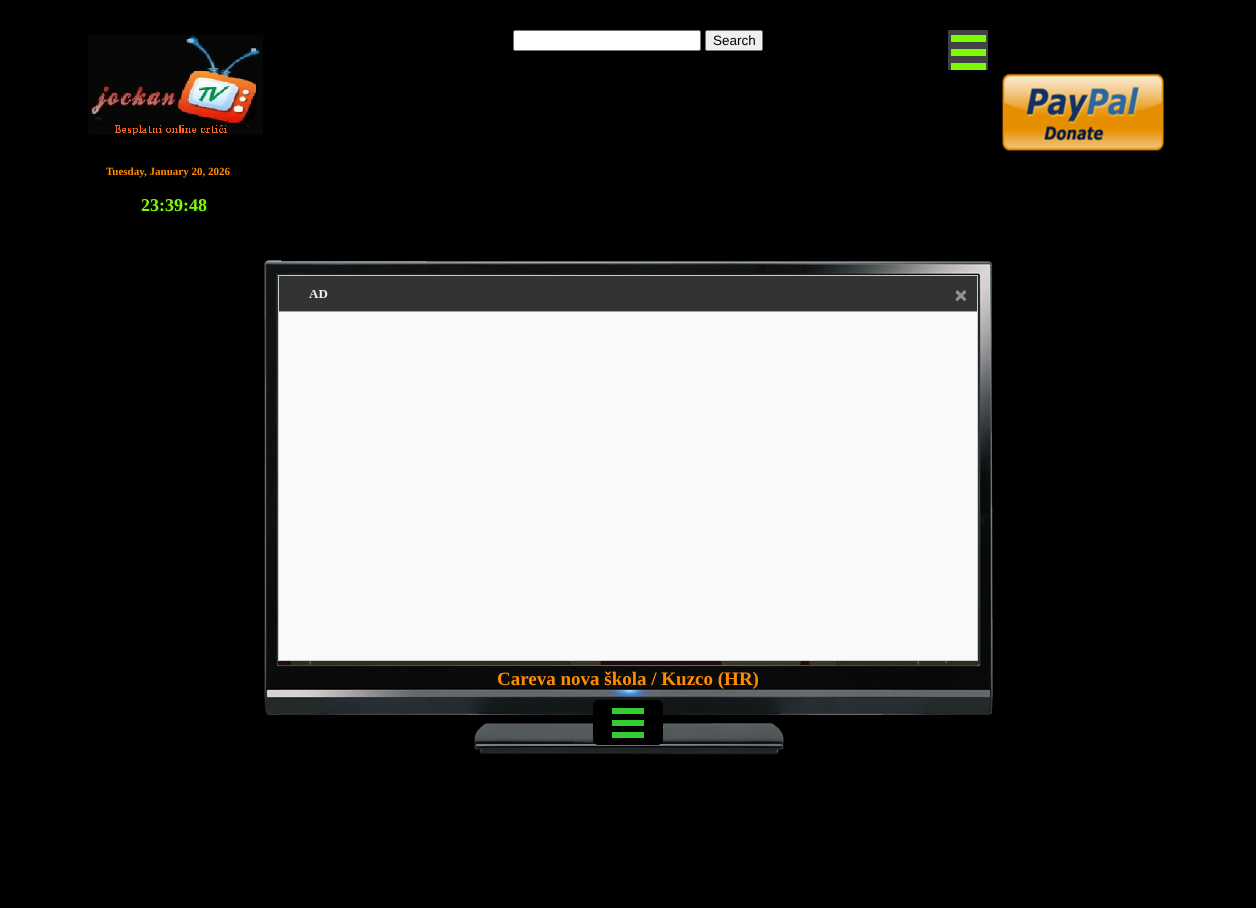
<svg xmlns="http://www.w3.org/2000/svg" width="1256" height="908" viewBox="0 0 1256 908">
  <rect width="100%" height="100%" fill="#000"/>
  <image x="88" y="35" width="175" height="100" href="img/1.png"/>
  <rect x="513.5" y="30.5" width="187" height="20" rx="1.5" fill="#fff" stroke="#767676"/>
  <rect x="705.5" y="30.5" width="57" height="20" rx="1.5" fill="#efefef" stroke="#767676"/>
  <path d="M948 30h40v40H948z" fill="#424242"/>
  <path d="M951 35h35v7H951z" fill="#7cfc00"/>
  <path d="M951 49h35v7H951z" fill="#7cfc00"/>
  <path d="M951 63h35v7H951z" fill="#7cfc00"/>
  <image x="1002" y="73" width="162" height="78" href="img/2.png"/>
  <image x="264" y="260" width="729" height="495" href="img/3.png"/>
  <image x="278" y="275" width="700" height="390" href="img/4.png"/>
  <rect x="593" y="700" width="70" height="45" rx="5" fill="#000"/>
  <path d="M612 708h32v6H612z" fill="#32cd32"/>
  <path d="M612 720h32v6H612z" fill="#32cd32"/>
  <path d="M612 732h32v6H612z" fill="#32cd32"/>
  <text x="713" y="45" font-family="Liberation Sans" font-size="13.5" fill="#000">Search</text>
  <text x="106" y="175" font-family="Liberation Serif" font-size="11" font-weight="bold" fill="#ff8c00">Tuesday, January 20, 2026</text>
  <text x="141" y="211" font-family="Liberation Serif" font-size="18" font-weight="bold" fill="#7cfc00">23:39:48</text>
  <text x="497" y="685" font-family="Liberation Serif" font-size="19" font-weight="bold" fill="#ff8c00">Careva nova škola / Kuzco (HR)</text>
</svg>
